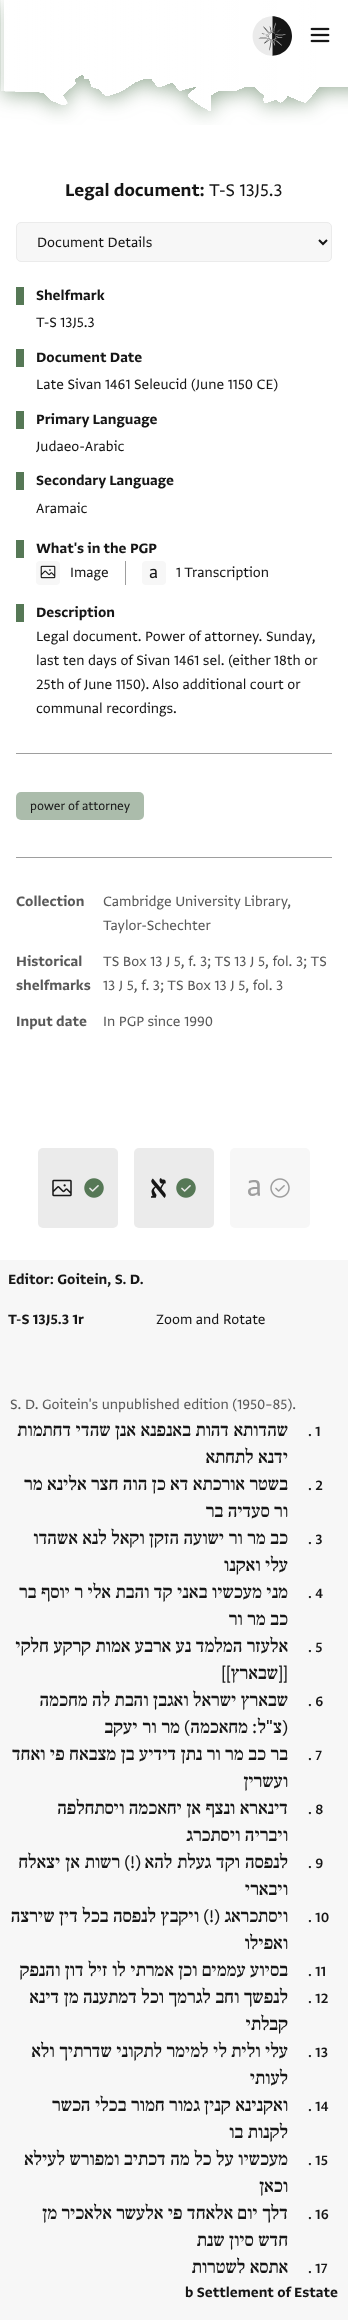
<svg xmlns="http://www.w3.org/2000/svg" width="348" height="2320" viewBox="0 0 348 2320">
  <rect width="100%" height="100%" fill="#fff"/>
  <image x="0" y="0" width="348" height="125" href="img/1.png"/>
  <image x="252" y="16" width="40" height="40" href="img/2.png"/>
  <image x="310" y="27" width="20" height="16" href="img/3.png"/>
  <rect x="16.5" y="222.5" width="315" height="39" rx="4.5" fill="#f7f7f7" stroke="#ebebeb"/>
  <path d="M319 240L323 244L327 240" fill="none" stroke="#161616" stroke-width="2"/>
  <path d="M16 287h8v18H16z" fill="#567856"/>
  <path d="M16 349h8v18H16z" fill="#567856"/>
  <path d="M16 411h8v18H16z" fill="#567856"/>
  <path d="M16 472h8v18H16z" fill="#567856"/>
  <path d="M16 540h8v18H16z" fill="#567856"/>
  <rect x="36" y="561" width="24" height="24" rx="4" fill="#f7f7f7"/>
  <image x="40" y="565" width="16" height="14" href="img/4.png"/>
  <path d="M125 561h1v24H125z" fill="#9e9e9e"/>
  <rect x="142" y="561" width="24" height="24" rx="4" fill="#f7f7f7"/>
  <image x="149" y="568" width="8" height="11" href="img/5.png"/>
  <path d="M16 753h316v1H16z" fill="#9e9e9e"/>
  <path d="M16 604h8v18H16z" fill="#567856"/>
  <path d="M16 857h316v1H16z" fill="#9e9e9e"/>
  <rect x="16" y="792" width="128" height="28" rx="5" fill="#abbcab"/>
  <rect x="38" y="1148" width="80" height="80" rx="5" fill="#ebebeb"/>
  <image x="52" y="1179" width="20" height="18" href="img/6.png"/>
  <image x="84" y="1178" width="20" height="20" href="img/7.png"/>
  <rect x="134" y="1148" width="80" height="80" rx="5" fill="#ebebeb"/>
  <image x="151" y="1178" width="15" height="20" href="img/8.png"/>
  <image x="176" y="1178" width="20" height="20" href="img/7.png"/>
  <rect x="230" y="1148" width="80" height="80" rx="5" fill="#f7f7f7"/>
  <image x="248" y="1180" width="12" height="16" href="img/9.png"/>
  <image x="270" y="1178" width="20" height="20" href="img/10.png"/>
  <path d="M0 1260h348v1060H0z" fill="#f7f7f7"/>
  <text x="65" y="196" font-family="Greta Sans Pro" font-size="20" font-weight="bold" fill="#161616">Legal document:</text>
  <text x="209" y="196" font-family="Greta Sans Pro" font-size="20" fill="#161616">T-S 13J5.3</text>
  <text x="37" y="247" font-family="Greta Sans Pro" font-size="16" fill="#161616">Document Details</text>
  <text x="36" y="300" font-family="Greta Sans Pro" font-size="16" font-weight="bold" fill="#161616">Shelfmark</text>
  <text x="36" y="327" font-family="Greta Sans Pro" font-size="16" fill="#161616">T-S 13J5.3</text>
  <text x="36" y="362" font-family="Greta Sans Pro" font-size="16" font-weight="bold" fill="#161616">Document Date</text>
  <text x="36" y="389" font-family="Greta Sans Pro" font-size="16" fill="#161616">Late Sivan 1461 Seleucid (June 1150 CE)</text>
  <text x="36" y="424" font-family="Greta Sans Pro" font-size="16" font-weight="bold" fill="#161616">Primary Language</text>
  <text x="36" y="451" font-family="Greta Sans Pro" font-size="16" fill="#161616">Judaeo-Arabic</text>
  <text x="36" y="485" font-family="Greta Sans Pro" font-size="16" font-weight="bold" fill="#161616">Secondary Language</text>
  <text x="36" y="513" font-family="Greta Sans Pro" font-size="16" fill="#161616">Aramaic</text>
  <text x="36" y="553" font-family="Greta Sans Pro" font-size="16" font-weight="bold" fill="#161616">What's in the PGP</text>
  <g font-family="Greta Sans Pro" font-size="16" fill="#161616">
    <text x="70" y="577">Image</text>
    <text x="176" y="577">1 Transcription</text>
  </g>
  <text x="36" y="617" font-family="Greta Sans Pro" font-size="16" font-weight="bold" fill="#161616">Description</text>
  <g font-family="Greta Sans Pro" font-size="16" fill="#161616">
    <text x="36" y="641">Legal document. Power of attorney. Sunday,</text>
    <text x="36" y="665">last ten days of Sivan 1461 sel. (either 18th or</text>
    <text x="36" y="689">25th of June 1150). Also additional court or</text>
    <text x="36" y="713">communal recordings.</text>
  </g>
  <text x="30" y="810" font-family="Greta Sans Pro" font-size="14" fill="#161616">power of attorney</text>
  <text x="16" y="906" font-family="Greta Sans Pro" font-size="16" font-weight="bold" fill="#595959">Collection</text>
  <g font-family="Greta Sans Pro" font-size="16" fill="#595959">
    <text x="103" y="906">Cambridge University Library,</text>
    <text x="103" y="930">Taylor-Schechter</text>
  </g>
  <g font-family="Greta Sans Pro" font-size="16" font-weight="bold" fill="#595959">
    <text x="16" y="966">Historical</text>
    <text x="16" y="990">shelfmarks</text>
  </g>
  <g font-family="Greta Sans Pro" font-size="16" fill="#595959">
    <text x="103" y="966">TS Box 13 J 5, f. 3; TS 13 J 5, fol. 3; TS</text>
    <text x="103" y="990">13 J 5, f. 3; TS Box 13 J 5, fol. 3</text>
  </g>
  <text x="16" y="1026" font-family="Greta Sans Pro" font-size="16" font-weight="bold" fill="#595959">Input date</text>
  <text x="103" y="1026" font-family="Greta Sans Pro" font-size="16" fill="#595959">In PGP since 1990</text>
  <g font-family="Greta Sans Pro" font-size="16" font-weight="bold" fill="#161616">
    <text x="8" y="1284">Editor: Goitein, S. D.</text>
    <text x="8" y="1324">T-S 13J5.3 1r</text>
  </g>
  <text x="156" y="1324" font-family="Greta Sans Pro" font-size="16" fill="#161616">Zoom and Rotate</text>
  <text x="10" y="1409" font-family="Greta Sans Pro" font-size="16" fill="#595959">S. D. Goitein's unpublished edition (1950–85).</text>
  <text x="288" y="1436" word-spacing="-0.5" font-family="'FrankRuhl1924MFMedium'" font-size="20" font-weight="500" direction="rtl" fill="#161616">שהדותא דהות באנפנא אנן שהדי דחתמות</text>
  <text x="308" y="1436" font-family="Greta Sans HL" font-size="16" font-weight="600" fill="#161616">. 1</text>
  <g font-family="'FrankRuhl1924MFMedium'" font-size="20" font-weight="500" direction="rtl" fill="#161616">
    <text x="288" y="1463" word-spacing="-0.5">ידנא לתחתא</text>
    <text x="288" y="1490" word-spacing="-0.5">בשטר אורכתא דא כן הוה חצר אלינא מר</text>
  </g>
  <text x="308" y="1490" font-family="Greta Sans HL" font-size="16" font-weight="600" fill="#161616">. 2</text>
  <g font-family="'FrankRuhl1924MFMedium'" font-size="20" font-weight="500" direction="rtl" fill="#161616">
    <text x="288" y="1517" word-spacing="-0.5">ור סעדיה בר</text>
    <text x="288" y="1544" word-spacing="-0.5">כב מר ור ישועה הזקן וקאל לנא אשהדו</text>
  </g>
  <text x="308" y="1544" font-family="Greta Sans HL" font-size="16" font-weight="600" fill="#161616">. 3</text>
  <g font-family="'FrankRuhl1924MFMedium'" font-size="20" font-weight="500" direction="rtl" fill="#161616">
    <text x="288" y="1571" word-spacing="-0.5">עלי ואקנו</text>
    <text x="288" y="1598" word-spacing="-0.5">מני מעכשיו באני קד והבת אלי ר יוסף בר</text>
  </g>
  <text x="308" y="1598" font-family="Greta Sans HL" font-size="16" font-weight="600" fill="#161616">. 4</text>
  <g font-family="'FrankRuhl1924MFMedium'" font-size="20" font-weight="500" direction="rtl" fill="#161616">
    <text x="288" y="1625" word-spacing="-0.5">כב מר ור</text>
    <text x="288" y="1652" word-spacing="-0.5">אלעזר המלמד נע ארבע אמות קרקע חלקי</text>
  </g>
  <text x="308" y="1652" font-family="Greta Sans HL" font-size="16" font-weight="600" fill="#161616">. 5</text>
  <text x="231" y="1679" font-family="Greta Sans Pro" font-size="20" direction="rtl" fill="#161616">]]</text>
  <text x="278" y="1679" font-family="'FrankRuhl1924MFMedium'" font-size="20" font-weight="500" direction="rtl" fill="#161616">שבארץ</text>
  <text x="288" y="1679" font-family="Greta Sans Pro" font-size="20" direction="rtl" fill="#161616">[[</text>
  <text x="288" y="1706" word-spacing="-0.5" font-family="'FrankRuhl1924MFMedium'" font-size="20" font-weight="500" direction="rtl" fill="#161616">שבארץ ישראל ואגבן והבת לה מחכמה</text>
  <text x="308" y="1706" font-family="Greta Sans HL" font-size="16" font-weight="600" fill="#161616">. 6</text>
  <text x="180" y="1733" font-family="'FrankRuhl1924MFMedium'" font-size="20" font-weight="500" direction="rtl" fill="#161616">מר ור יעקב</text>
  <text x="190" y="1733" font-family="Greta Sans Pro" font-size="20" direction="rtl" fill="#161616">)</text>
  <text x="248" y="1733" font-family="'FrankRuhl1924MFMedium'" font-size="20" font-weight="500" direction="rtl" fill="#161616">מחאכמה</text>
  <text x="257" y="1733" font-family="Greta Sans Pro" font-size="20" direction="rtl" fill="#161616">:</text>
  <text x="266" y="1733" font-family="'FrankRuhl1924MFMedium'" font-size="20" font-weight="500" direction="rtl" fill="#161616">ל</text>
  <text x="273" y="1733" font-family="Greta Sans Pro" font-size="20" direction="rtl" fill="#161616">"</text>
  <text x="282" y="1733" font-family="'FrankRuhl1924MFMedium'" font-size="20" font-weight="500" direction="rtl" fill="#161616">צ</text>
  <text x="288" y="1733" font-family="Greta Sans Pro" font-size="20" direction="rtl" fill="#161616">(</text>
  <text x="288" y="1760" word-spacing="-0.5" font-family="'FrankRuhl1924MFMedium'" font-size="20" font-weight="500" direction="rtl" fill="#161616">בר כב מר ור נתן דידיע בן מצבאח פי ואחד</text>
  <text x="308" y="1760" font-family="Greta Sans HL" font-size="16" font-weight="600" fill="#161616">. 7</text>
  <g font-family="'FrankRuhl1924MFMedium'" font-size="20" font-weight="500" direction="rtl" fill="#161616">
    <text x="288" y="1787">ועשרין</text>
    <text x="288" y="1814" word-spacing="-0.5">דינארא ונצף אן יחאכמה ויסתחלפה</text>
  </g>
  <text x="308" y="1814" font-family="Greta Sans HL" font-size="16" font-weight="600" fill="#161616">. 8</text>
  <g font-family="'FrankRuhl1924MFMedium'" font-size="20" font-weight="500" direction="rtl" fill="#161616">
    <text x="288" y="1841" word-spacing="-0.5">ויבריה ויסתכרג</text>
    <text x="120" y="1868">רשות אן יצאלח</text>
  </g>
  <text x="141" y="1868" font-family="Greta Sans Pro" font-size="20" direction="rtl" fill="#161616">(!)</text>
  <text x="288" y="1868" font-family="'FrankRuhl1924MFMedium'" font-size="20" font-weight="500" direction="rtl" fill="#161616">לנפסה וקד געלת להא</text>
  <text x="308" y="1868" font-family="Greta Sans HL" font-size="16" font-weight="600" fill="#161616">. 9</text>
  <g font-family="'FrankRuhl1924MFMedium'" font-size="20" font-weight="500" direction="rtl" fill="#161616">
    <text x="288" y="1895">ויבארי</text>
    <text x="199" y="1922" word-spacing="-0.5">ויקבץ לנפסה בכל דין שירצה</text>
  </g>
  <text x="220" y="1922" font-family="Greta Sans Pro" font-size="20" direction="rtl" fill="#161616">(!)</text>
  <text x="288" y="1922" font-family="'FrankRuhl1924MFMedium'" font-size="20" font-weight="500" direction="rtl" fill="#161616">ויסתכראג</text>
  <text x="308" y="1922" font-family="Greta Sans HL" font-size="16" font-weight="600" fill="#161616">. 10</text>
  <g font-family="'FrankRuhl1924MFMedium'" font-size="20" font-weight="500" direction="rtl" fill="#161616">
    <text x="288" y="1949">ואפילו</text>
    <text x="288" y="1976" word-spacing="-0.5">בסיוע עממים וכן אמרתי לו זיל דון והנפק</text>
  </g>
  <text x="308" y="1976" font-family="Greta Sans HL" font-size="16" font-weight="600" fill="#161616">. 11</text>
  <text x="288" y="2003" word-spacing="-0.5" font-family="'FrankRuhl1924MFMedium'" font-size="20" font-weight="500" direction="rtl" fill="#161616">לנפשך וחב לגרמך וכל דמתענה מן דינא</text>
  <text x="308" y="2003" font-family="Greta Sans HL" font-size="16" font-weight="600" fill="#161616">. 12</text>
  <g font-family="'FrankRuhl1924MFMedium'" font-size="20" font-weight="500" direction="rtl" fill="#161616">
    <text x="288" y="2030">קבלתי</text>
    <text x="288" y="2057" word-spacing="-0.5">עלי ולית לי למימר לתקוני שדרתיך ולא</text>
  </g>
  <text x="308" y="2057" font-family="Greta Sans HL" font-size="16" font-weight="600" fill="#161616">. 13</text>
  <g font-family="'FrankRuhl1924MFMedium'" font-size="20" font-weight="500" direction="rtl" fill="#161616">
    <text x="288" y="2084">לעותי</text>
    <text x="288" y="2111" word-spacing="-0.5">ואקנינא קנין גמור חמור בכלי הכשר</text>
  </g>
  <text x="308" y="2111" font-family="Greta Sans HL" font-size="16" font-weight="600" fill="#161616">. 14</text>
  <g font-family="'FrankRuhl1924MFMedium'" font-size="20" font-weight="500" direction="rtl" fill="#161616">
    <text x="288" y="2138" word-spacing="-0.5">לקנות בו</text>
    <text x="288" y="2165" word-spacing="-0.5">מעכשיו על כל מה דכתיב ומפורש לעילא</text>
  </g>
  <text x="308" y="2165" font-family="Greta Sans HL" font-size="16" font-weight="600" fill="#161616">. 15</text>
  <g font-family="'FrankRuhl1924MFMedium'" font-size="20" font-weight="500" direction="rtl" fill="#161616">
    <text x="288" y="2192">וכאן</text>
    <text x="288" y="2219" word-spacing="-0.5">דלך יום אלאחד פי אלעשר אלאכיר מן</text>
  </g>
  <text x="308" y="2219" font-family="Greta Sans HL" font-size="16" font-weight="600" fill="#161616">. 16</text>
  <g font-family="'FrankRuhl1924MFMedium'" font-size="20" font-weight="500" direction="rtl" fill="#161616">
    <text x="288" y="2246" word-spacing="-0.5">חדש סיון שנת</text>
    <text x="288" y="2273" word-spacing="-0.5">אתסא לשטרות</text>
  </g>
  <text x="308" y="2273" font-family="Greta Sans HL" font-size="16" font-weight="600" fill="#161616">. 17</text>
  <text x="185" y="2297" font-family="Greta Sans Pro" font-size="16" font-weight="bold" fill="#161616">b Settlement of Estate</text>
</svg>
